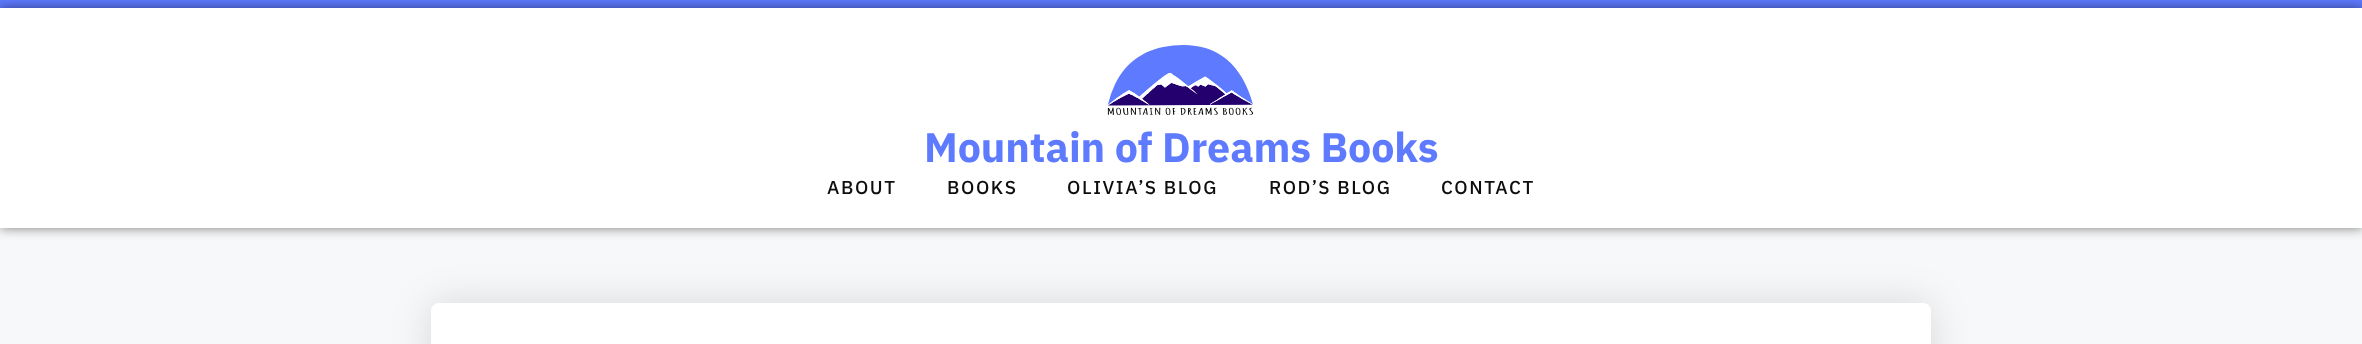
<svg xmlns="http://www.w3.org/2000/svg" width="2362" height="344" viewBox="0 0 2362 344">
  <rect width="100%" height="100%" fill="#f7f8f9"/>
  <path d="M0 0h2362v8H0z" fill="#5e7aff"/>
  <path d="M0 8h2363v220H0z" fill="#00000080" filter="blur(6px)"/>
  <path d="M0 8h2362v220H0z" fill="#fff"/>
  <image x="1107" y="45" width="146" height="70" href="img/1.png"/>
  <rect x="431" y="303" width="1500" height="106" rx="8" fill="#00000021" filter="blur(19px)"/>
  <rect x="431" y="303" width="1500" height="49" rx="8" fill="#fff"/>
  <text x="924" y="162" font-family="IBM Plex Sans" font-size="41.25" font-weight="bold" letter-spacing="-0.1" fill="#5e7aff">Mountain of Dreams Books</text>
  <g font-family="IBM Plex Sans" font-size="18.75" font-weight="500" letter-spacing="1.6" fill="#0f0e0e">
    <text x="827" y="194">ABOUT</text>
    <text x="947" y="194">BOOKS</text>
    <text x="1067" y="194">OLIVIA’S BLOG</text>
    <text x="1269" y="194">ROD’S BLOG</text>
    <text x="1441" y="194">CONTACT</text>
  </g>
</svg>
